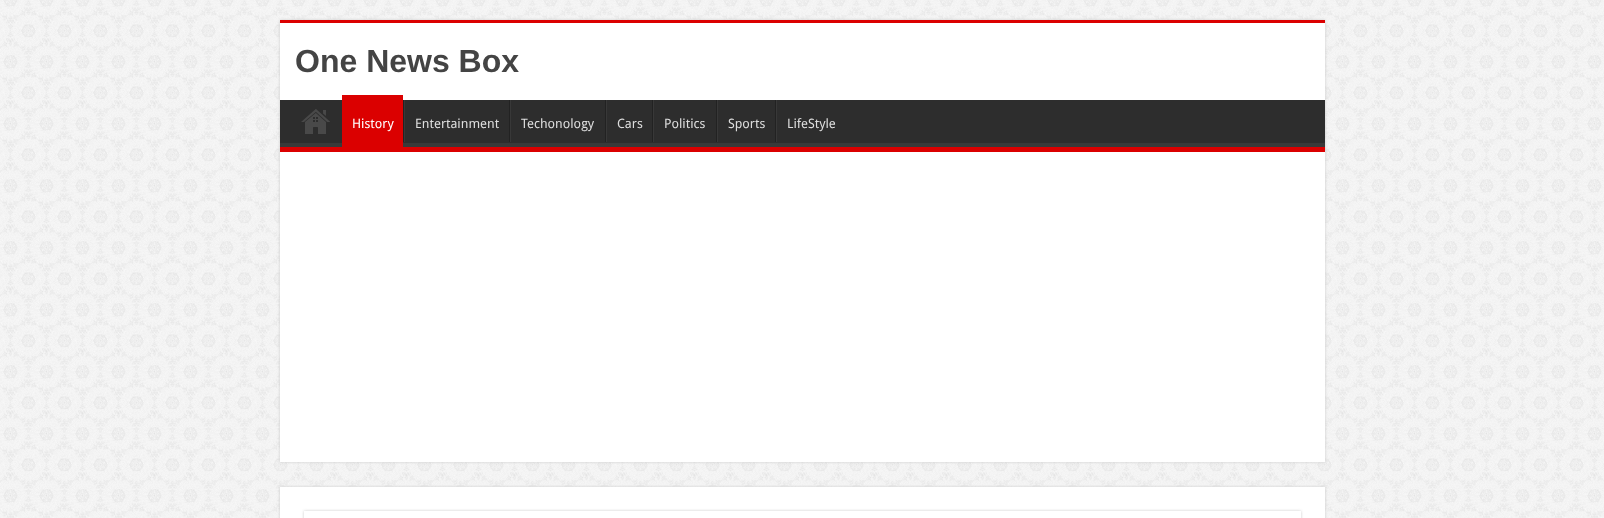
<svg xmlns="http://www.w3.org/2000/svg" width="1604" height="518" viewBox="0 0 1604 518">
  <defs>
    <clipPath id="clip1"><path d="M280 100h1045v47H280z"/></clipPath>
    <clipPath id="clip2"><path d="M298 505H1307V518H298ZM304 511H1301V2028H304Z" clip-rule="evenodd"/></clipPath>
  </defs>
  <rect width="100%" height="100%" fill="#fff"/>
  <image x="0" y="0" width="1604" height="518" href="img/1.png"/>
  <path d="M280 20h1045v442H280z" fill="#cacaca" filter="blur(1.5px)"/>
  <path d="M280 23h1045v439H280z" fill="#fff"/>
  <path d="M280 20h1045v3H280z" fill="#db0000"/>
  <path d="M280 100h1045v43H280z" fill="#2d2d2d"/>
  <g clip-path="url(#clip1)">
    <path d="M181 1H1424V246H181ZM279 94H1325V134C1325 135 1326 143 1324 143H279L278 142V94Z" fill="#393939" fill-rule="evenodd"/>
  </g>
  <path d="M280 147h1045v5H280z" fill="#db0000"/>
  <image x="301" y="109" width="29" height="25" href="img/2.png"/>
  <path d="M342 95h61v52H342z" fill="#db0000"/>
  <path d="M403 100h1v42H403z" fill="#222"/>
  <path d="M404 100h1v42H404z" fill="#383838"/>
  <path d="M509 100h1v42H509z" fill="#222"/>
  <path d="M510 100h1v42H510z" fill="#383838"/>
  <path d="M605 100h1v42H605z" fill="#222"/>
  <path d="M606 100h1v42H606z" fill="#383838"/>
  <path d="M652 100h1v42H652z" fill="#222"/>
  <path d="M653 100h1v42H653z" fill="#383838"/>
  <path d="M716 100h1v42H716z" fill="#222"/>
  <path d="M717 100h1v42H717z" fill="#383838"/>
  <path d="M775 100h1v42H775z" fill="#222"/>
  <path d="M776 100h1v42H776z" fill="#383838"/>
  <path d="M280 487h1045v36H280z" fill="#cacaca" filter="blur(1.5px)"/>
  <path d="M280 487h1045v31H280z" fill="#fff"/>
  <g clip-path="url(#clip2)">
    <path d="M304 511h997v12H304z" fill="#cacaca" filter="blur(1.5px)"/>
  </g>
  <text x="295" y="72" font-family="Liberation Sans" font-size="32" font-weight="bold" fill="#444">One News Box</text>
  <text x="352" y="128" font-family="Droid Sans" font-size="13" fill="#fff">History</text>
  <g font-family="Droid Sans" font-size="13" fill="#ddd">
    <text x="415" y="128">Entertainment</text>
    <text x="521" y="128">Techonology</text>
    <text x="617" y="128">Cars</text>
    <text x="664" y="128">Politics</text>
    <text x="728" y="128">Sports</text>
    <text x="787" y="128">LifeStyle</text>
  </g>
</svg>
